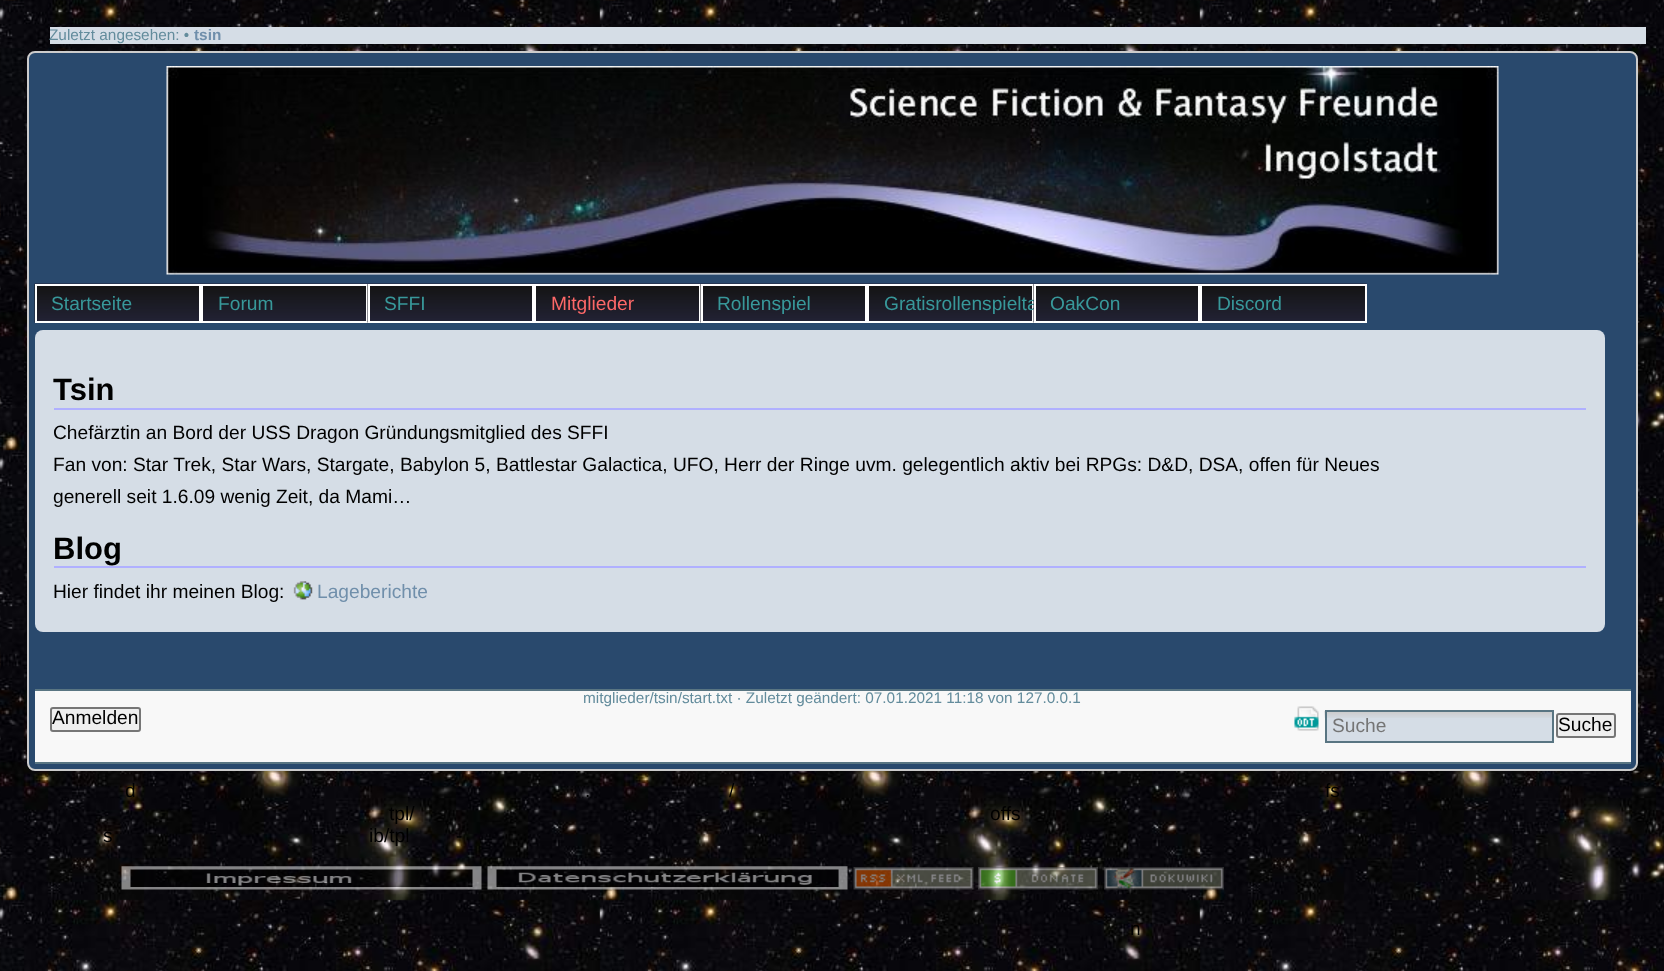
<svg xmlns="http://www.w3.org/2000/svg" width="1664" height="971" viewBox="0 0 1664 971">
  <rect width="100%" height="100%" fill="#fff"/>
  <image x="0" y="0" width="1664" height="971" href="img/1.png"/>
  <path d="M50 27h1596v17H50z" fill="#d5dde6"/>
  <rect x="28" y="52" width="1609" height="718" rx="7" fill="#29496d" stroke="#ccc" stroke-width="2"/>
  <image x="166" y="66" width="1333" height="209" href="img/2.png"/>
  <image x="34" y="283" width="167" height="40" href="img/3.png"/>
  <path d="M36 285h164v37H36z" fill="none" stroke="#fff" stroke-width="2"/>
  <image x="201" y="283" width="167" height="38" href="img/4.png"/>
  <path d="M202 285h165v37H202z" fill="none" stroke="#fff" stroke-width="2"/>
  <image x="367" y="283" width="167" height="40" href="img/5.png"/>
  <path d="M369 285h164v37H369z" fill="none" stroke="#fff" stroke-width="2"/>
  <image x="534" y="283" width="167" height="38" href="img/4.png"/>
  <path d="M535 285h165v37H535z" fill="none" stroke="#fff" stroke-width="2"/>
  <image x="700" y="283" width="167" height="40" href="img/5.png"/>
  <path d="M702 285h164v37H702z" fill="none" stroke="#fff" stroke-width="2"/>
  <image x="867" y="283" width="167" height="38" href="img/4.png"/>
  <path d="M868 285h165v37H868z" fill="none" stroke="#fff" stroke-width="2"/>
  <image x="1200" y="283" width="167" height="38" href="img/4.png"/>
  <path d="M1201 285h165v37H1201z" fill="none" stroke="#fff" stroke-width="2"/>
  <rect x="35" y="330" width="1570" height="302" rx="8" fill="#d5dde6"/>
  <path d="M54 408h1532v2H54z" fill="#b0b0ff"/>
  <path d="M54 566h1532v2H54z" fill="#b0b0ff"/>
  <image x="293" y="581" width="20" height="19" href="img/7.png"/>
  <path d="M35 691h1596v71H35z" fill="#f8f8f8"/>
  <path d="M35 689h1596v2H35z" fill="#597582"/>
  <path d="M35 762h1596v2H35z" fill="#597582"/>
  <rect x="51" y="708" width="89" height="23" rx="2" fill="#efefef" stroke="#767676" stroke-width="2"/>
  <image x="1294" y="706" width="25" height="25" href="img/8.png"/>
  <path d="M1327 712h225v29H1327z" fill="#d5dde6"/>
  <image x="1324" y="711" width="228" height="7" href="img/9.png"/>
  <path d="M1326 711h227v31H1326z" fill="none" stroke="#597582" stroke-width="2"/>
  <rect x="1557" y="714" width="58" height="23" rx="2" fill="#efefef" stroke="#767676" stroke-width="2"/>
  <image x="121" y="866" width="361" height="24" href="img/10.png"/>
  <image x="487" y="866" width="361" height="24" href="img/11.png"/>
  <image x="853" y="867" width="121" height="23" href="img/12.png"/>
  <image x="978" y="867" width="120" height="23" href="img/13.png"/>
  <image x="1104" y="867" width="120" height="23" href="img/14.png"/>
  <text x="49" y="40" font-family="Liberation Sans" font-size="15.35" fill="#638c9c">Zuletzt angesehen: •</text>
  <text x="194" y="40" font-family="Liberation Sans" font-size="15.35" font-weight="bold" fill="#708fab">tsin</text>
  <g font-family="Liberation Sans" font-size="19.2" fill="#38989a">
    <text x="51" y="310">Startseite</text>
    <text x="218" y="310">Forum</text>
    <text x="384" y="310">SFFI</text>
  </g>
  <text x="551" y="310" font-family="Liberation Sans" font-size="19.2" fill="#fd6868">Mitglieder</text>
  <g font-family="Liberation Sans" font-size="19.2" fill="#38989a">
    <text x="717" y="310">Rollenspiel</text>
    <text x="884" y="310">Gratisrollenspielta</text>
  </g>
  <image x="1033" y="283" width="167" height="40" href="img/6.png"/>
  <path d="M1035 285h164v37H1035z" fill="none" stroke="#fff" stroke-width="2"/>
  <g font-family="Liberation Sans" font-size="19.2" fill="#38989a">
    <text x="1050" y="310">OakCon</text>
    <text x="1217" y="310">Discord</text>
  </g>
  <text x="53" y="400" font-family="Liberation Sans" font-size="31" font-weight="bold" fill="#000">Tsin</text>
  <g font-family="Liberation Sans" font-size="19.2" fill="#000">
    <text x="53" y="439">Chefärztin an Bord der USS Dragon Gründungsmitglied des SFFI</text>
    <text x="53" y="471">Fan von: Star Trek, Star Wars, Stargate, Babylon 5, Battlestar Galactica, UFO, Herr der Ringe uvm. gelegentlich aktiv bei RPGs: D&amp;D, DSA, offen für Neues</text>
    <text x="53" y="503">generell seit 1.6.09 wenig Zeit, da Mami…</text>
  </g>
  <text x="53" y="559" font-family="Liberation Sans" font-size="31" font-weight="bold" fill="#000">Blog</text>
  <text x="53" y="598" font-family="Liberation Sans" font-size="19.2" fill="#000">Hier findet ihr meinen Blog:</text>
  <text x="317" y="598" font-family="Liberation Sans" font-size="19.2" fill="#708fab">Lageberichte</text>
  <text x="583" y="703" font-family="Liberation Sans" font-size="15.35" fill="#638c9c">mitglieder/tsin/start.txt · Zuletzt geändert: 07.01.2021 11:18 von 127.0.0.1</text>
  <text x="52" y="724" font-family="Liberation Sans" font-size="19.2" fill="#000">Anmelden</text>
  <text x="1332" y="732" font-family="Liberation Sans" font-size="19.2" fill="#757575">Suche</text>
  <g font-family="Liberation Sans" font-size="19.2" fill="#000">
    <text x="1558" y="731">Suche</text>
    <text x="125" y="797">d</text>
    <text x="585" y="797">.</text>
    <text x="729" y="797">/</text>
    <text x="1325" y="797">fs</text>
    <text x="389" y="820">tpl/</text>
    <text x="990" y="820">offs</text>
    <text x="103" y="842">s</text>
    <text x="369" y="842">ib/tpl</text>
    <text x="456" y="842">-</text>
    <text x="1130" y="935">n</text>
  </g>
</svg>
